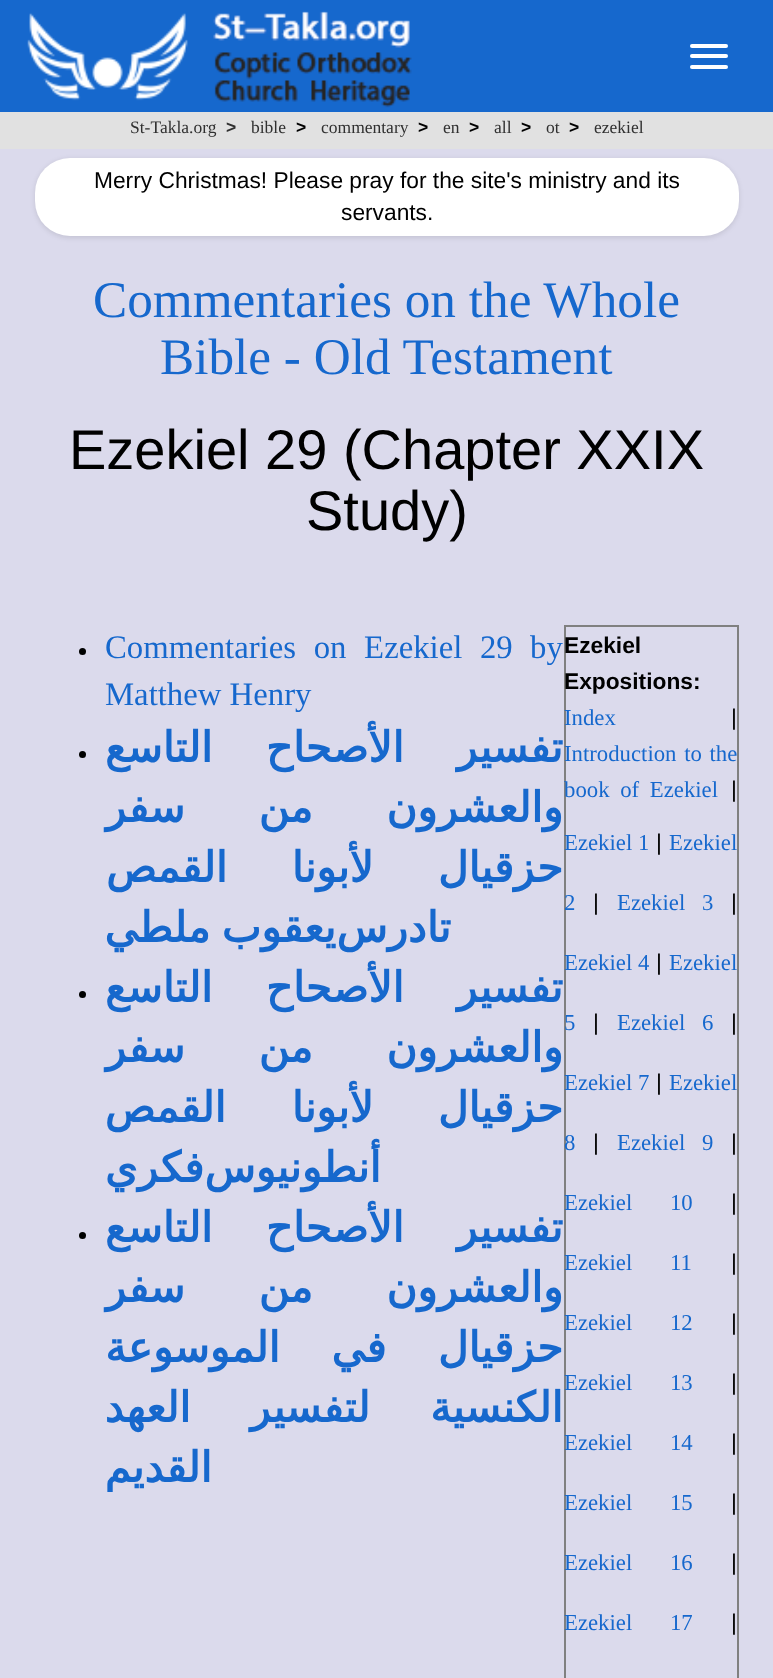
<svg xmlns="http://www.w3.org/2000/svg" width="773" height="1678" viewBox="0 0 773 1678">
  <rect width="100%" height="100%" fill="#dbdaec"/>
  <path d="M0 0h773v112H0z" fill="#1668cd"/>
  <image x="27" y="11" width="385" height="97" href="img/1.png"/>
  <rect x="690" y="44" width="38" height="4" rx="2" fill="#fff"/>
  <rect x="690" y="54" width="38" height="4" rx="2" fill="#fff"/>
  <rect x="690" y="65" width="38" height="4" rx="2" fill="#fff"/>
  <path d="M0 112h773v37H0z" fill="#e1e1e1"/>
  <rect x="35" y="159" width="704" height="79" rx="35" fill="#0000001a" filter="blur(2.5px)"/>
  <rect x="35" y="158" width="704" height="78" rx="35" fill="#fff"/>
  <circle cx="82.5" cy="651.5" r="3.5" fill="#000"/>
  <circle cx="82.5" cy="754.5" r="3.5" fill="#000"/>
  <circle cx="82.5" cy="994.5" r="3.5" fill="#000"/>
  <circle cx="82.5" cy="1235.5" r="3.5" fill="#000"/>
  <path d="M564 625h175v2H564z" fill="#808080"/>
  <path d="M737 625h2v1053H737z" fill="#808080"/>
  <path d="M564 625h2v1053H564z" fill="#808080"/>
  <text x="130" y="133" font-family="Liberation Serif" font-size="17.5" fill="#303030">St-Takla.org</text>
  <text x="226" y="133" font-family="Liberation Sans" font-size="17.5" font-weight="bold" fill="#303030">&gt;</text>
  <text x="251" y="133" font-family="Liberation Serif" font-size="17.5" fill="#303030">bible</text>
  <text x="296" y="133" font-family="Liberation Sans" font-size="17.5" font-weight="bold" fill="#000">&gt;</text>
  <text x="321" y="133" font-family="Liberation Serif" font-size="17.5" fill="#303030">commentary</text>
  <text x="418" y="133" font-family="Liberation Sans" font-size="17.5" font-weight="bold" fill="#000">&gt;</text>
  <text x="443" y="133" font-family="Liberation Serif" font-size="17.5" fill="#303030">en</text>
  <text x="469" y="133" font-family="Liberation Sans" font-size="17.5" font-weight="bold" fill="#000">&gt;</text>
  <text x="494" y="133" font-family="Liberation Serif" font-size="17.5" fill="#303030">all</text>
  <text x="521" y="133" font-family="Liberation Sans" font-size="17.5" font-weight="bold" fill="#000">&gt;</text>
  <text x="546" y="133" font-family="Liberation Serif" font-size="17.5" fill="#303030">ot</text>
  <text x="569" y="133" font-family="Liberation Sans" font-size="17.5" font-weight="bold" fill="#000">&gt;</text>
  <text x="594" y="133" font-family="Liberation Serif" font-size="17.5" fill="#303030">ezekiel</text>
  <g font-family="Liberation Sans" font-size="22.75" fill="#000">
    <text x="94" y="188">Merry Christmas! Please pray for the site's ministry and its</text>
    <text x="341" y="220">servants.</text>
  </g>
  <g font-family="Liberation Serif" font-size="51.25" fill="#1668cd">
    <text x="93" y="317">Commentaries on the Whole</text>
    <text x="160" y="374">Bible - Old Testament</text>
  </g>
  <g font-family="Liberation Sans" font-size="56" fill="#000">
    <text x="69" y="469">Ezekiel 29 (Chapter XXIX</text>
    <text x="306" y="530">Study)</text>
  </g>
  <g font-family="Liberation Serif" font-size="32.75" fill="#1668cd">
    <text x="105" y="658" word-spacing="9.5">Commentaries on Ezekiel 29</text>
    <text x="530" y="658">by</text>
    <text x="105" y="705">Matthew Henry</text>
  </g>
  <g font-family="DejaVu Sans" font-size="42" font-weight="bold" direction="rtl" fill="#1668cd">
    <text x="404" y="762" word-spacing="40">الأصحاح التاسع</text>
    <text x="563" y="762">تفسير</text>
    <text x="563" y="822" word-spacing="60">والعشرون من سفر</text>
    <text x="563" y="882" word-spacing="51">حزقيال لأبونا القمص</text>
    <text x="336" y="942" word-spacing="-2">يعقوب ملطي</text>
    <text x="451" y="942">تادرس</text>
    <text x="404" y="1002" word-spacing="40">الأصحاح التاسع</text>
    <text x="563" y="1002">تفسير</text>
    <text x="563" y="1062" word-spacing="60">والعشرون من سفر</text>
    <text x="226" y="1122">القمص</text>
    <text x="563" y="1122" word-spacing="51">حزقيال لأبونا</text>
    <text x="204" y="1182">فكري</text>
    <text x="381" y="1182">أنطونيوس</text>
    <text x="404" y="1242" word-spacing="40">الأصحاح التاسع</text>
    <text x="563" y="1242">تفسير</text>
    <text x="563" y="1302" word-spacing="60">والعشرون من سفر</text>
    <text x="563" y="1362" word-spacing="38">حزقيال في الموسوعة</text>
    <text x="370" y="1422" word-spacing="46">لتفسير العهد</text>
    <text x="563" y="1422">الكنسية</text>
    <text x="212" y="1482">القديم</text>
  </g>
  <g font-family="Liberation Sans" font-size="22.75" font-weight="bold" fill="#000">
    <text x="564" y="653">Ezekiel</text>
    <text x="564" y="689">Expositions:</text>
  </g>
  <text x="564" y="725" font-family="Liberation Serif" font-size="22.75" fill="#1668cd">Index</text>
  <text x="731" y="725" font-family="Liberation Sans" font-size="22.75" fill="#000">|</text>
  <g font-family="Liberation Serif" font-size="22.75" fill="#1668cd">
    <text x="564" y="761" word-spacing="2">Introduction to the</text>
    <text x="564" y="797" word-spacing="5">book of Ezekiel</text>
  </g>
  <text x="731" y="797" font-family="Liberation Sans" font-size="22.75" fill="#000">|</text>
  <text x="564" y="850" font-family="Liberation Serif" font-size="22.75" fill="#1668cd">Ezekiel 1</text>
  <text x="656" y="850" font-family="Liberation Sans" font-size="22.75" fill="#000">|</text>
  <g font-family="Liberation Serif" font-size="22.75" fill="#1668cd">
    <text x="669" y="850">Ezekiel</text>
    <text x="564" y="910">2</text>
  </g>
  <text x="593" y="910" font-family="Liberation Sans" font-size="22.75" fill="#000">|</text>
  <text x="617" y="910" word-spacing="11" font-family="Liberation Serif" font-size="22.75" fill="#1668cd">Ezekiel 3</text>
  <text x="731" y="910" font-family="Liberation Sans" font-size="22.75" fill="#000">|</text>
  <text x="564" y="970" font-family="Liberation Serif" font-size="22.75" fill="#1668cd">Ezekiel 4</text>
  <text x="656" y="970" font-family="Liberation Sans" font-size="22.75" fill="#000">|</text>
  <g font-family="Liberation Serif" font-size="22.75" fill="#1668cd">
    <text x="669" y="970">Ezekiel</text>
    <text x="564" y="1030">5</text>
  </g>
  <text x="593" y="1030" font-family="Liberation Sans" font-size="22.75" fill="#000">|</text>
  <text x="617" y="1030" word-spacing="11" font-family="Liberation Serif" font-size="22.75" fill="#1668cd">Ezekiel 6</text>
  <text x="731" y="1030" font-family="Liberation Sans" font-size="22.75" fill="#000">|</text>
  <text x="564" y="1090" font-family="Liberation Serif" font-size="22.75" fill="#1668cd">Ezekiel 7</text>
  <text x="656" y="1090" font-family="Liberation Sans" font-size="22.75" fill="#000">|</text>
  <g font-family="Liberation Serif" font-size="22.75" fill="#1668cd">
    <text x="669" y="1090">Ezekiel</text>
    <text x="564" y="1150">8</text>
  </g>
  <text x="593" y="1150" font-family="Liberation Sans" font-size="22.75" fill="#000">|</text>
  <text x="617" y="1150" word-spacing="11" font-family="Liberation Serif" font-size="22.75" fill="#1668cd">Ezekiel 9</text>
  <text x="731" y="1150" font-family="Liberation Sans" font-size="22.75" fill="#000">|</text>
  <text x="564" y="1210" word-spacing="32" font-family="Liberation Serif" font-size="22.75" fill="#1668cd">Ezekiel 10</text>
  <text x="731" y="1210" font-family="Liberation Sans" font-size="22.75" fill="#000">|</text>
  <text x="564" y="1270" word-spacing="32" font-family="Liberation Serif" font-size="22.75" fill="#1668cd">Ezekiel 11</text>
  <text x="731" y="1270" font-family="Liberation Sans" font-size="22.75" fill="#000">|</text>
  <text x="564" y="1330" word-spacing="32" font-family="Liberation Serif" font-size="22.75" fill="#1668cd">Ezekiel 12</text>
  <text x="731" y="1330" font-family="Liberation Sans" font-size="22.75" fill="#000">|</text>
  <text x="564" y="1390" word-spacing="32" font-family="Liberation Serif" font-size="22.75" fill="#1668cd">Ezekiel 13</text>
  <text x="731" y="1390" font-family="Liberation Sans" font-size="22.75" fill="#000">|</text>
  <text x="564" y="1450" word-spacing="32" font-family="Liberation Serif" font-size="22.75" fill="#1668cd">Ezekiel 14</text>
  <text x="731" y="1450" font-family="Liberation Sans" font-size="22.75" fill="#000">|</text>
  <text x="564" y="1510" word-spacing="32" font-family="Liberation Serif" font-size="22.75" fill="#1668cd">Ezekiel 15</text>
  <text x="731" y="1510" font-family="Liberation Sans" font-size="22.75" fill="#000">|</text>
  <text x="564" y="1570" word-spacing="32" font-family="Liberation Serif" font-size="22.75" fill="#1668cd">Ezekiel 16</text>
  <text x="731" y="1570" font-family="Liberation Sans" font-size="22.75" fill="#000">|</text>
  <text x="564" y="1630" word-spacing="32" font-family="Liberation Serif" font-size="22.75" fill="#1668cd">Ezekiel 17</text>
  <text x="731" y="1630" font-family="Liberation Sans" font-size="22.75" fill="#000">|</text>
</svg>
